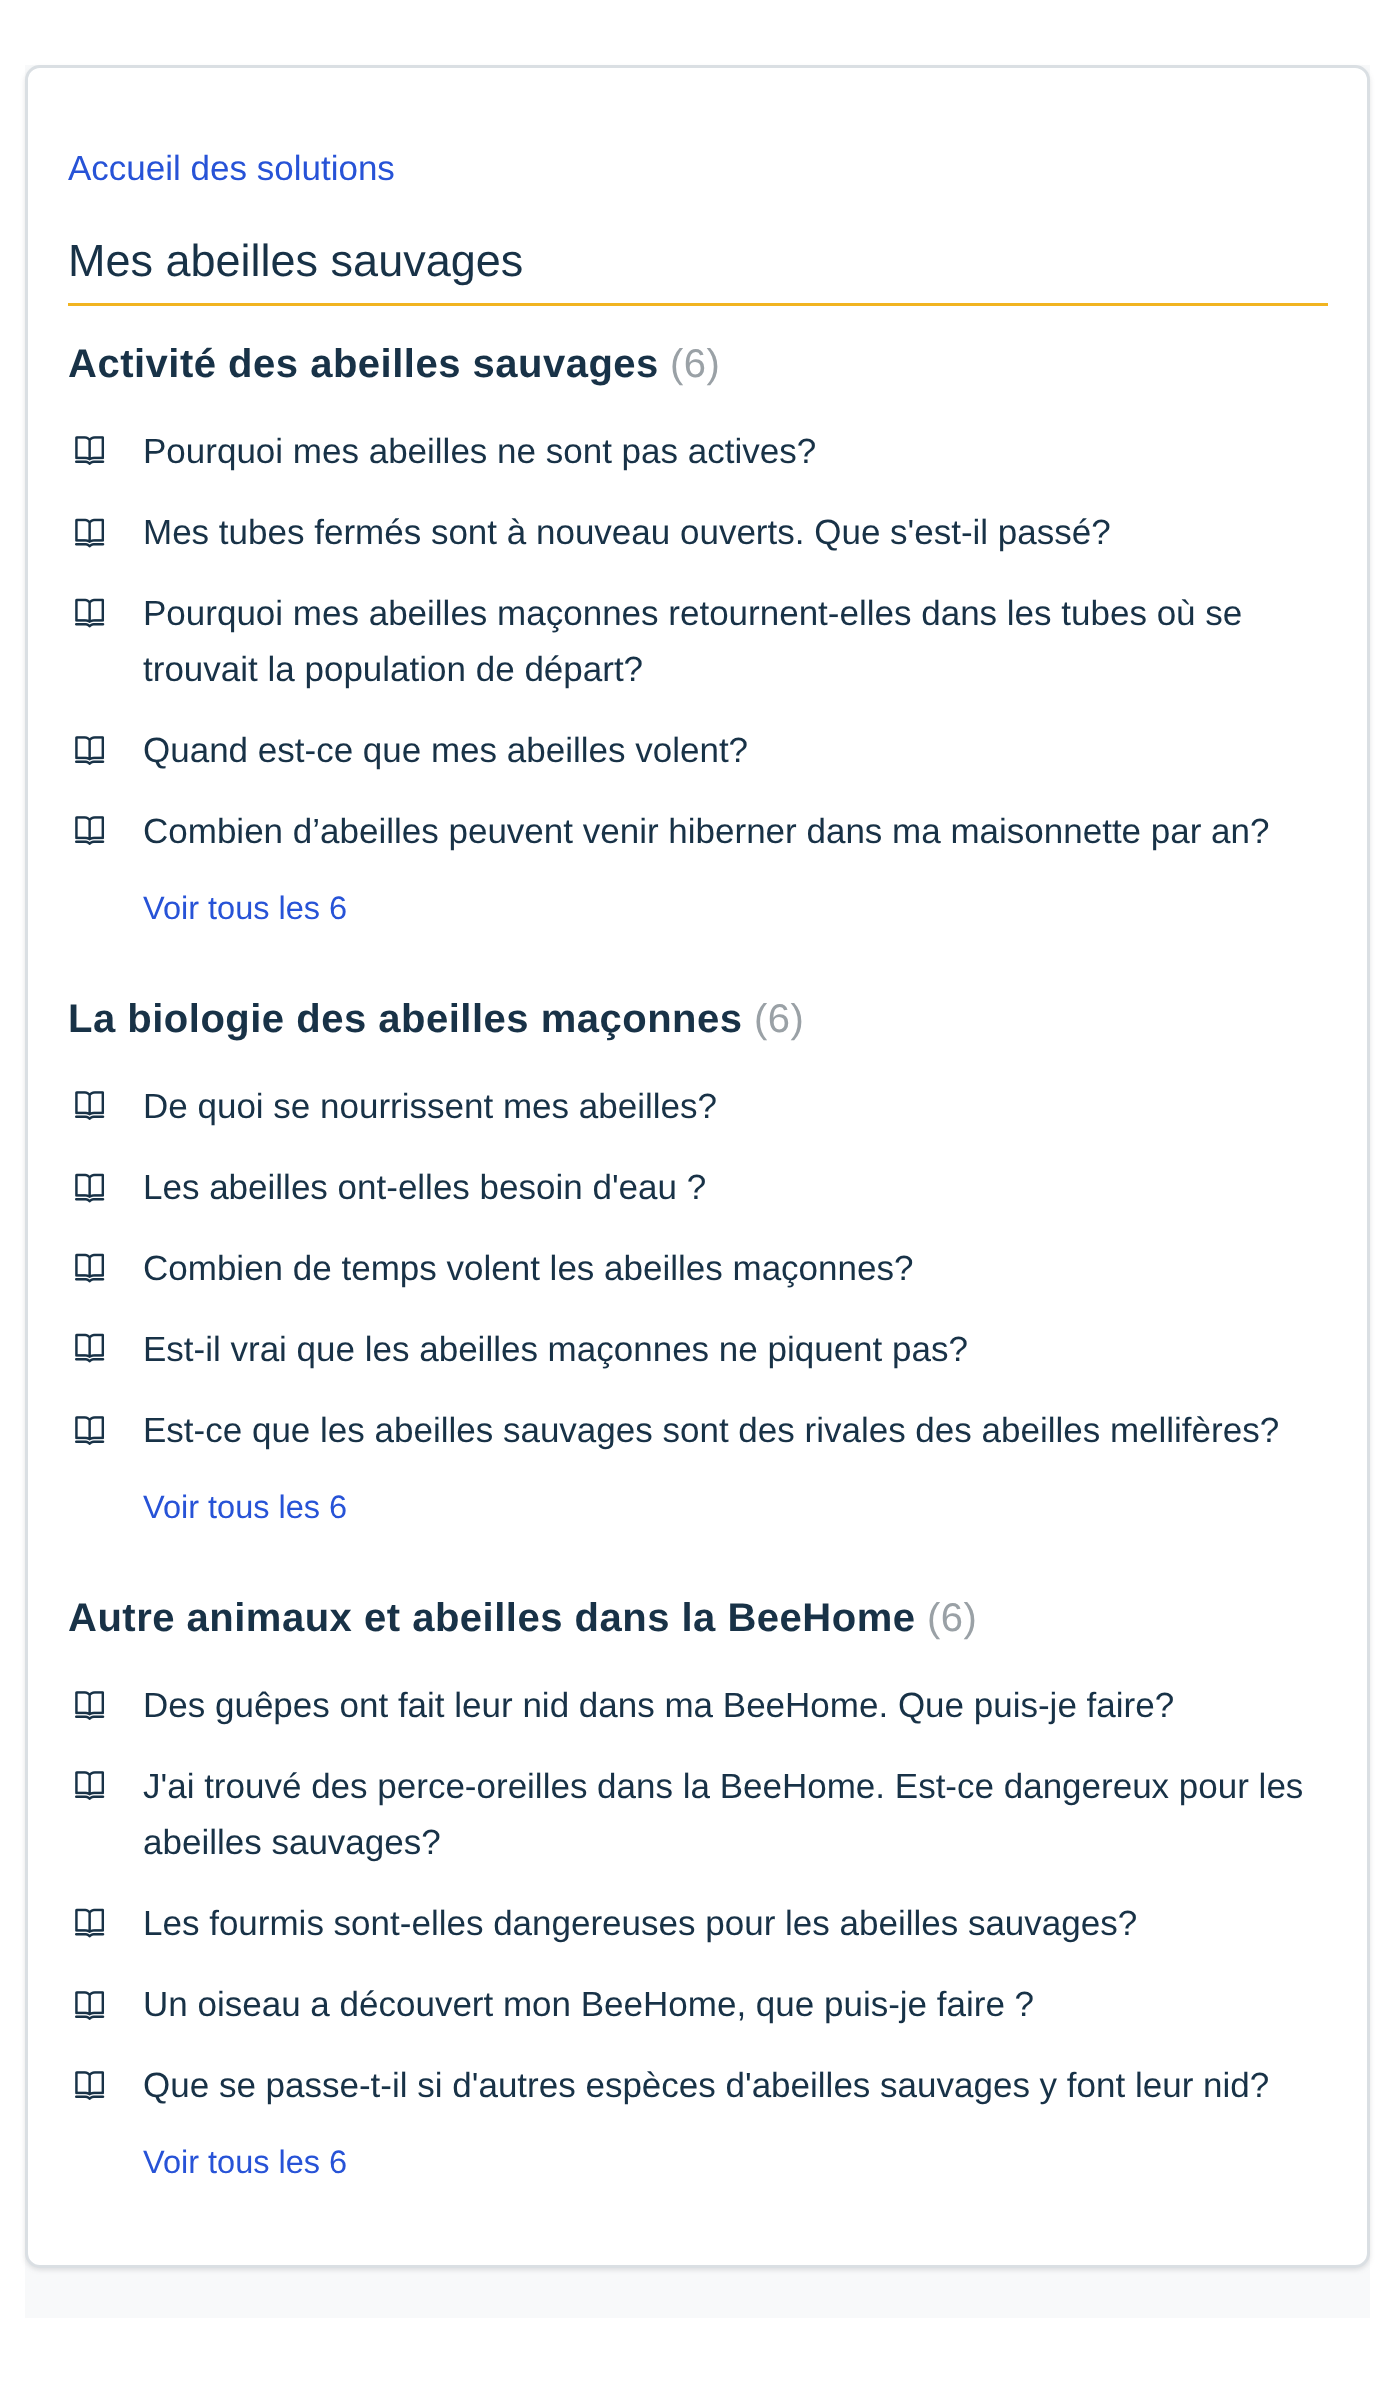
<svg xmlns="http://www.w3.org/2000/svg" width="1393" height="2394" viewBox="0 0 1393 2394">
  <rect width="100%" height="100%" fill="#fff"/>
  <path d="M25 65h1345v2253H25z" fill="#f8f9fa"/>
  <rect x="25" y="68" width="1345" height="2202" rx="15" fill="#3f3f4426" filter="blur(2.5px)"/>
  <rect x="26.5" y="66.5" width="1342" height="2200" rx="13.5" fill="#fff" stroke="#dadfe3" stroke-width="3"/>
  <path d="M68 303h1260v3H68z" fill="#f1b420"/>
  <image x="75" y="436" width="30" height="29" href="img/1.png"/>
  <image x="75" y="518" width="30" height="30" href="img/2.png"/>
  <image x="75" y="598" width="30" height="30" href="img/2.png"/>
  <image x="75" y="736" width="30" height="29" href="img/1.png"/>
  <image x="75" y="816" width="30" height="29" href="img/1.png"/>
  <image x="75" y="1091" width="30" height="29" href="img/1.png"/>
  <image x="75" y="1173" width="30" height="30" href="img/2.png"/>
  <image x="75" y="1253" width="30" height="30" href="img/2.png"/>
  <image x="75" y="1333" width="30" height="30" href="img/2.png"/>
  <image x="75" y="1416" width="30" height="29" href="img/1.png"/>
  <image x="75" y="1691" width="30" height="29" href="img/1.png"/>
  <image x="75" y="1771" width="30" height="29" href="img/1.png"/>
  <image x="75" y="1908" width="30" height="30" href="img/2.png"/>
  <image x="75" y="1991" width="30" height="29" href="img/1.png"/>
  <image x="75" y="2071" width="30" height="29" href="img/1.png"/>
  <text x="68" y="180" font-family="Liberation Sans" font-size="35" fill="#2753d7">Accueil des solutions</text>
  <text x="68" y="276" font-family="Liberation Sans" font-size="45" fill="#183247">Mes abeilles sauvages</text>
  <text x="68" y="377" font-family="Liberation Sans" font-size="40" font-weight="bold" letter-spacing="0.5" fill="#183247">Activité des abeilles sauvages</text>
  <text x="670" y="377" font-family="Liberation Sans" font-size="40" letter-spacing="0.5" fill="#9aa1a6">(6)</text>
  <g font-family="Liberation Sans" font-size="35" fill="#183247">
    <text x="143" y="463">Pourquoi mes abeilles ne sont pas actives?</text>
    <text x="143" y="544">Mes tubes fermés sont à nouveau ouverts. Que s'est-il passé?</text>
    <text x="143" y="625">Pourquoi mes abeilles maçonnes retournent-elles dans les tubes où se</text>
    <text x="143" y="681">trouvait la population de départ?</text>
    <text x="143" y="762">Quand est-ce que mes abeilles volent?</text>
    <text x="143" y="843">Combien d’abeilles peuvent venir hiberner dans ma maisonnette par an?</text>
  </g>
  <text x="143" y="919" font-family="Liberation Sans" font-size="32.5" fill="#2753d7">Voir tous les 6</text>
  <text x="68" y="1032" font-family="Liberation Sans" font-size="40" font-weight="bold" letter-spacing="0.5" fill="#183247">La biologie des abeilles maçonnes</text>
  <text x="754" y="1032" font-family="Liberation Sans" font-size="40" letter-spacing="0.5" fill="#9aa1a6">(6)</text>
  <g font-family="Liberation Sans" font-size="35" fill="#183247">
    <text x="143" y="1118">De quoi se nourrissent mes abeilles?</text>
    <text x="143" y="1199">Les abeilles ont-elles besoin d'eau ?</text>
    <text x="143" y="1280">Combien de temps volent les abeilles maçonnes?</text>
    <text x="143" y="1361">Est-il vrai que les abeilles maçonnes ne piquent pas?</text>
    <text x="143" y="1442">Est-ce que les abeilles sauvages sont des rivales des abeilles mellifères?</text>
  </g>
  <text x="143" y="1518" font-family="Liberation Sans" font-size="32.5" fill="#2753d7">Voir tous les 6</text>
  <text x="68" y="1631" font-family="Liberation Sans" font-size="40" font-weight="bold" letter-spacing="0.5" fill="#183247">Autre animaux et abeilles dans la BeeHome</text>
  <text x="927" y="1631" font-family="Liberation Sans" font-size="40" letter-spacing="0.5" fill="#9aa1a6">(6)</text>
  <g font-family="Liberation Sans" font-size="35" fill="#183247">
    <text x="143" y="1717">Des guêpes ont fait leur nid dans ma BeeHome. Que puis-je faire?</text>
    <text x="143" y="1798">J'ai trouvé des perce-oreilles dans la BeeHome. Est-ce dangereux pour les</text>
    <text x="143" y="1854">abeilles sauvages?</text>
    <text x="143" y="1935">Les fourmis sont-elles dangereuses pour les abeilles sauvages?</text>
    <text x="143" y="2016">Un oiseau a découvert mon BeeHome, que puis-je faire ?</text>
    <text x="143" y="2097">Que se passe-t-il si d'autres espèces d'abeilles sauvages y font leur nid?</text>
  </g>
  <text x="143" y="2173" font-family="Liberation Sans" font-size="32.5" fill="#2753d7">Voir tous les 6</text>
</svg>
